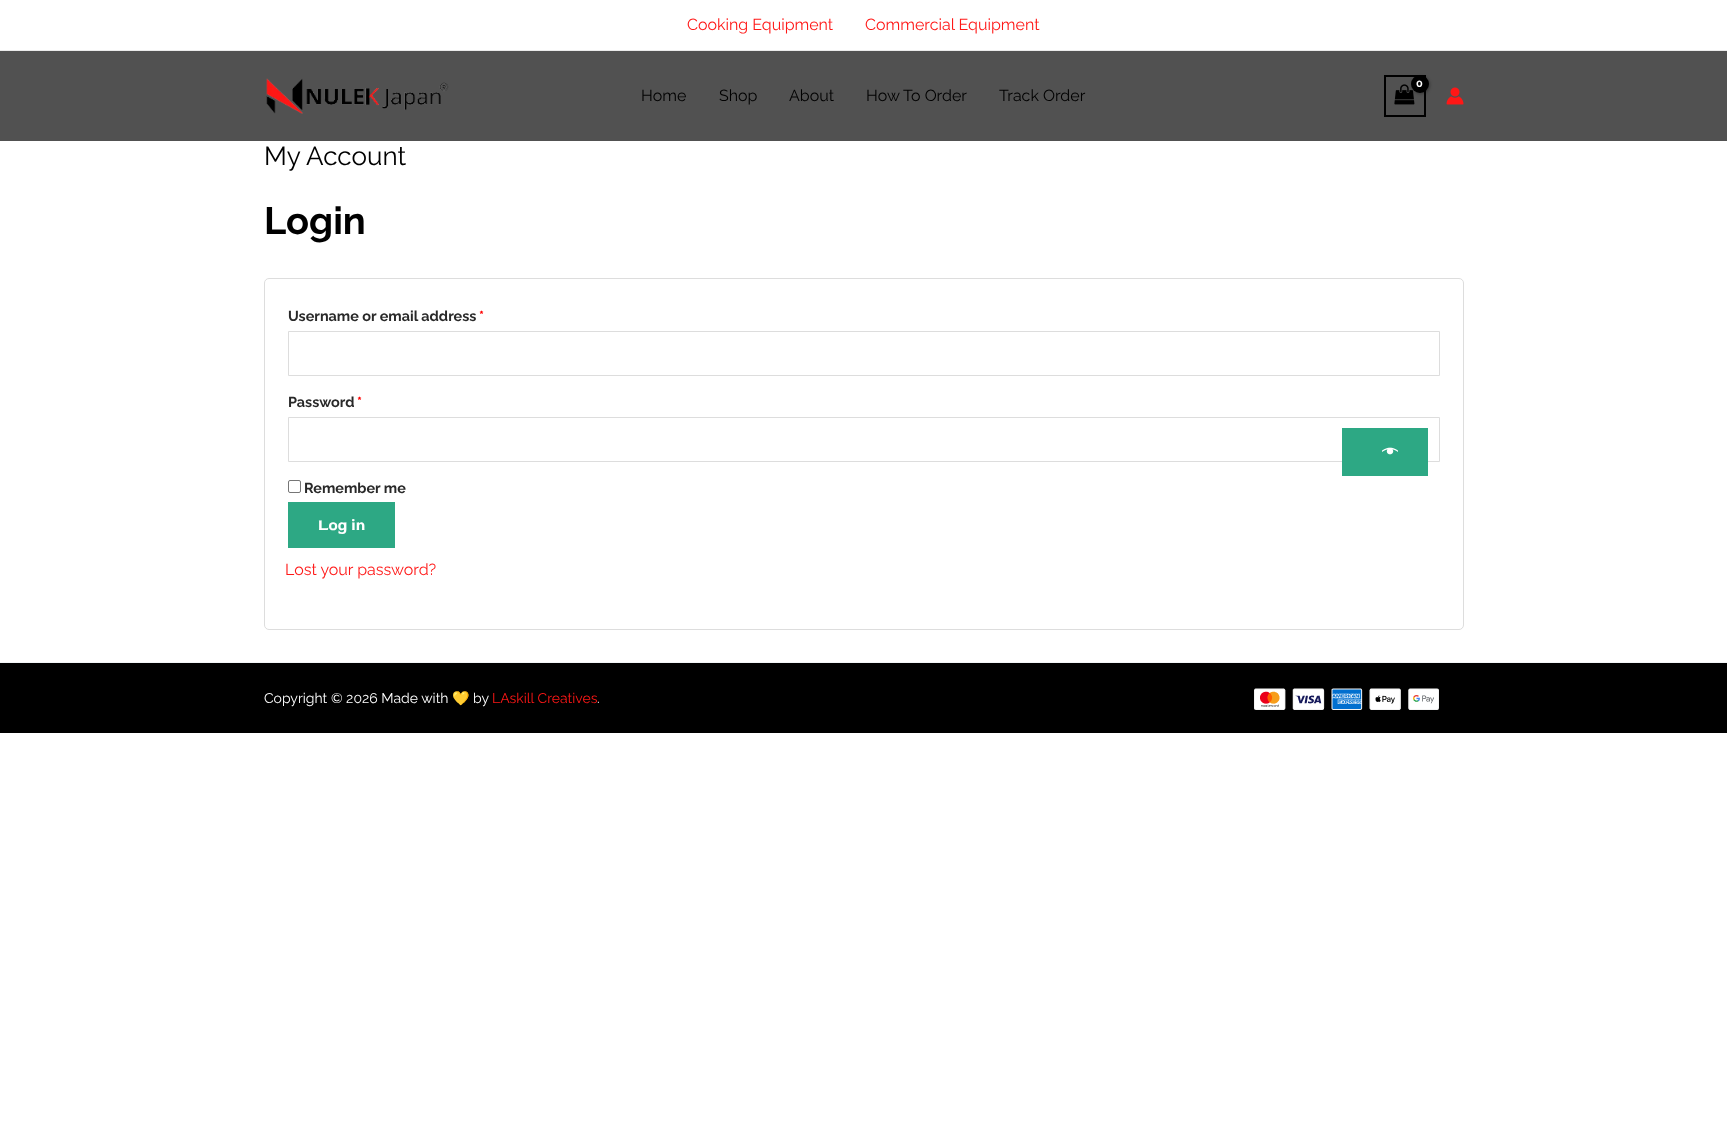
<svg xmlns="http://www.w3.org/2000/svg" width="1727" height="1143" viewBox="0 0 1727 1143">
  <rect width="100%" height="100%" fill="#fff"/>
  <path d="M0 50h1727v1H0z" fill="#eaeaea"/>
  <path d="M0 51h1727v90H0z" fill="#515151"/>
  <image x="266" y="78" width="183" height="36" href="img/1.png"/>
  <path d="M1385 76h40v40H1385z" fill="none" stroke="#000" stroke-width="2"/>
  <image x="1394" y="84" width="21" height="21" href="img/2.png"/>
  <rect x="1412" y="76" width="18" height="18" rx="9" fill="#0000004d" filter="blur(1.5px)"/>
  <circle cx="1420" cy="84" r="9" fill="#000"/>
  <image x="1446" y="87" width="18" height="18" href="img/3.png"/>
  <rect x="264.5" y="278.5" width="1199" height="351" rx="4.5" fill="none" stroke="#ddd"/>
  <path d="M288.5 331.5h1151v44H288.5z" fill="none" stroke="#ddd"/>
  <path d="M288.5 417.5h1151v44H288.5z" fill="none" stroke="#ddd"/>
  <path d="M1342 428h86v48H1342z" fill="#2da884"/>
  <image x="1382" y="447" width="16" height="8" href="img/4.png"/>
  <rect x="288.5" y="480.5" width="12" height="12" rx="1.5" fill="none" stroke="#767676"/>
  <path d="M288 502h107v46H288z" fill="#2da884"/>
  <path d="M0 663h1727v70H0z" fill="#000"/>
  <path d="M0 662h1727v1H0z" fill="#f2f5f7"/>
  <image x="1254" y="688" width="185" height="22" href="img/5.png"/>
  <g font-family="Raleway" font-size="16" fill="#ff1716">
    <text x="687" y="30">Cooking Equipment</text>
    <text x="865" y="30">Commercial Equipment</text>
  </g>
  <text x="1416" y="87" font-family="Raleway" font-size="11" font-weight="bold" fill="#fff">0</text>
  <g font-family="Raleway" font-size="16" fill="#000">
    <text x="641" y="101">Home</text>
    <text x="719" y="101">Shop</text>
    <text x="789" y="101">About</text>
    <text x="866" y="101">How To Order</text>
    <text x="999" y="101">Track Order</text>
  </g>
  <text x="264" y="165" font-family="Raleway" font-size="26" fill="#000">My Account</text>
  <text x="264" y="234" font-family="Raleway" font-size="38" font-weight="bold" fill="#000">Login</text>
  <text x="288" y="321" font-family="Raleway" font-size="14.4" font-weight="bold" fill="#292929">Username or email address</text>
  <text x="479" y="321" font-family="Raleway" font-size="14.4" font-weight="bold" fill="#f00">*</text>
  <text x="288" y="407" font-family="Raleway" font-size="14.4" font-weight="bold" fill="#292929">Password</text>
  <text x="357" y="407" font-family="Raleway" font-size="14.4" font-weight="bold" fill="#f00">*</text>
  <text x="304" y="493" font-family="Raleway" font-size="14.4" font-weight="bold" fill="#292929">Remember me</text>
  <text x="318" y="530" font-family="Red Rose" font-size="16" font-weight="bold" fill="#fff">Log in</text>
  <text x="285" y="575" font-family="Raleway" font-size="16" fill="#ff1716">Lost your password?</text>
  <text x="264" y="703" font-family="Raleway" font-size="14" fill="#fff">Copyright © 2026 Made with</text>
  <text x="452" y="703" font-family="Noto Color Emoji" font-size="14" fill="#fff">💛</text>
  <text x="473" y="703" font-family="Raleway" font-size="14" fill="#fff">by</text>
  <text x="492" y="703" font-family="Raleway" font-size="14" fill="#ff1716">LAskill Creatives</text>
  <text x="597" y="703" font-family="Raleway" font-size="14" fill="#fff">.</text>
</svg>
